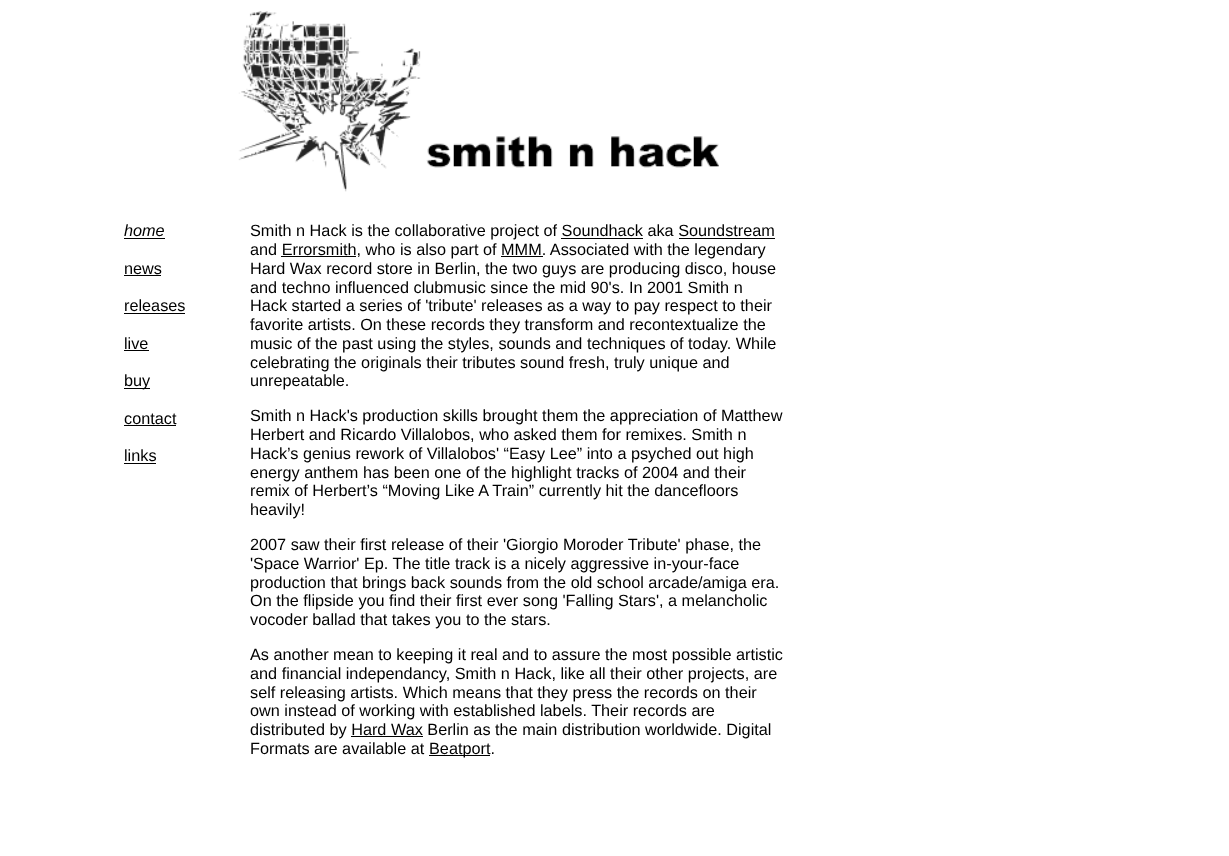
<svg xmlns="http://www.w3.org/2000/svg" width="1229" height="856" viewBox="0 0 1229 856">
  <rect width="100%" height="100%" fill="#fff"/>
  <image x="238" y="11" width="481" height="181" href="img/1.png"/>
  <path d="M124 238h41v1H124z" fill="#000"/>
  <path d="M124 275h37v1H124z" fill="#000"/>
  <path d="M124 313h61v1H124z" fill="#000"/>
  <path d="M124 350h25v1H124z" fill="#000"/>
  <path d="M124 388h26v1H124z" fill="#000"/>
  <path d="M124 425h52v1H124z" fill="#000"/>
  <path d="M124 463h32v1H124z" fill="#000"/>
  <path d="M561 238h82v1H561z" fill="#000"/>
  <path d="M679 238h96v1H679z" fill="#000"/>
  <path d="M281 256h75v1H281z" fill="#000"/>
  <path d="M501 256h42v1H501z" fill="#000"/>
  <path d="M351 736h72v1H351z" fill="#000"/>
  <path d="M429 755h61v1H429z" fill="#000"/>
  <text x="124" y="236" font-family="Liberation Sans" font-size="16.25" font-style="italic" fill="#000">home</text>
  <g font-family="Liberation Sans" font-size="16.25" fill="#000">
    <text x="124" y="274">news</text>
    <text x="124" y="311">releases</text>
    <text x="124" y="349">live</text>
    <text x="124" y="386">buy</text>
    <text x="124" y="424">contact</text>
    <text x="124" y="461">links</text>
    <text x="250" y="236">Smith n Hack is the collaborative project of Soundhack aka Soundstream</text>
    <text x="250" y="255">and Errorsmith, who is also part of MMM. Associated with the legendary</text>
    <text x="250" y="274">Hard Wax record store in Berlin, the two guys are producing disco, house</text>
    <text x="250" y="293">and techno influenced clubmusic since the mid 90's. In 2001 Smith n</text>
    <text x="250" y="311">Hack started a series of 'tribute' releases as a way to pay respect to their</text>
    <text x="250" y="330">favorite artists. On these records they transform and recontextualize the</text>
    <text x="250" y="349">music of the past using the styles, sounds and techniques of today. While</text>
    <text x="250" y="368">celebrating the originals their tributes sound fresh, truly unique and</text>
    <text x="250" y="386">unrepeatable.</text>
    <text x="250" y="421">Smith n Hack's production skills brought them the appreciation of Matthew</text>
    <text x="250" y="440">Herbert and Ricardo Villalobos, who asked them for remixes. Smith n</text>
    <text x="250" y="459">Hack’s genius rework of Villalobos' “Easy Lee” into a psyched out high</text>
    <text x="250" y="478">energy anthem has been one of the highlight tracks of 2004 and their</text>
    <text x="250" y="496">remix of Herbert’s “Moving Like A Train” currently hit the dancefloors</text>
    <text x="250" y="515">heavily!</text>
    <text x="250" y="550">2007 saw their first release of their 'Giorgio Moroder Tribute' phase, the</text>
    <text x="250" y="569">'Space Warrior' Ep. The title track is a nicely aggressive in-your-face</text>
    <text x="250" y="588">production that brings back sounds from the old school arcade/amiga era.</text>
    <text x="250" y="606">On the flipside you find their first ever song 'Falling Stars', a melancholic</text>
    <text x="250" y="625">vocoder ballad that takes you to the stars.</text>
    <text x="250" y="660">As another mean to keeping it real and to assure the most possible artistic</text>
    <text x="250" y="679">and financial independancy, Smith n Hack, like all their other projects, are</text>
    <text x="250" y="698">self releasing artists. Which means that they press the records on their</text>
    <text x="250" y="716">own instead of working with established labels. Their records are</text>
    <text x="250" y="735">distributed by Hard Wax Berlin as the main distribution worldwide. Digital</text>
    <text x="250" y="754">Formats are available at</text>
    <text x="429" y="754">Beatport.</text>
  </g>
</svg>
